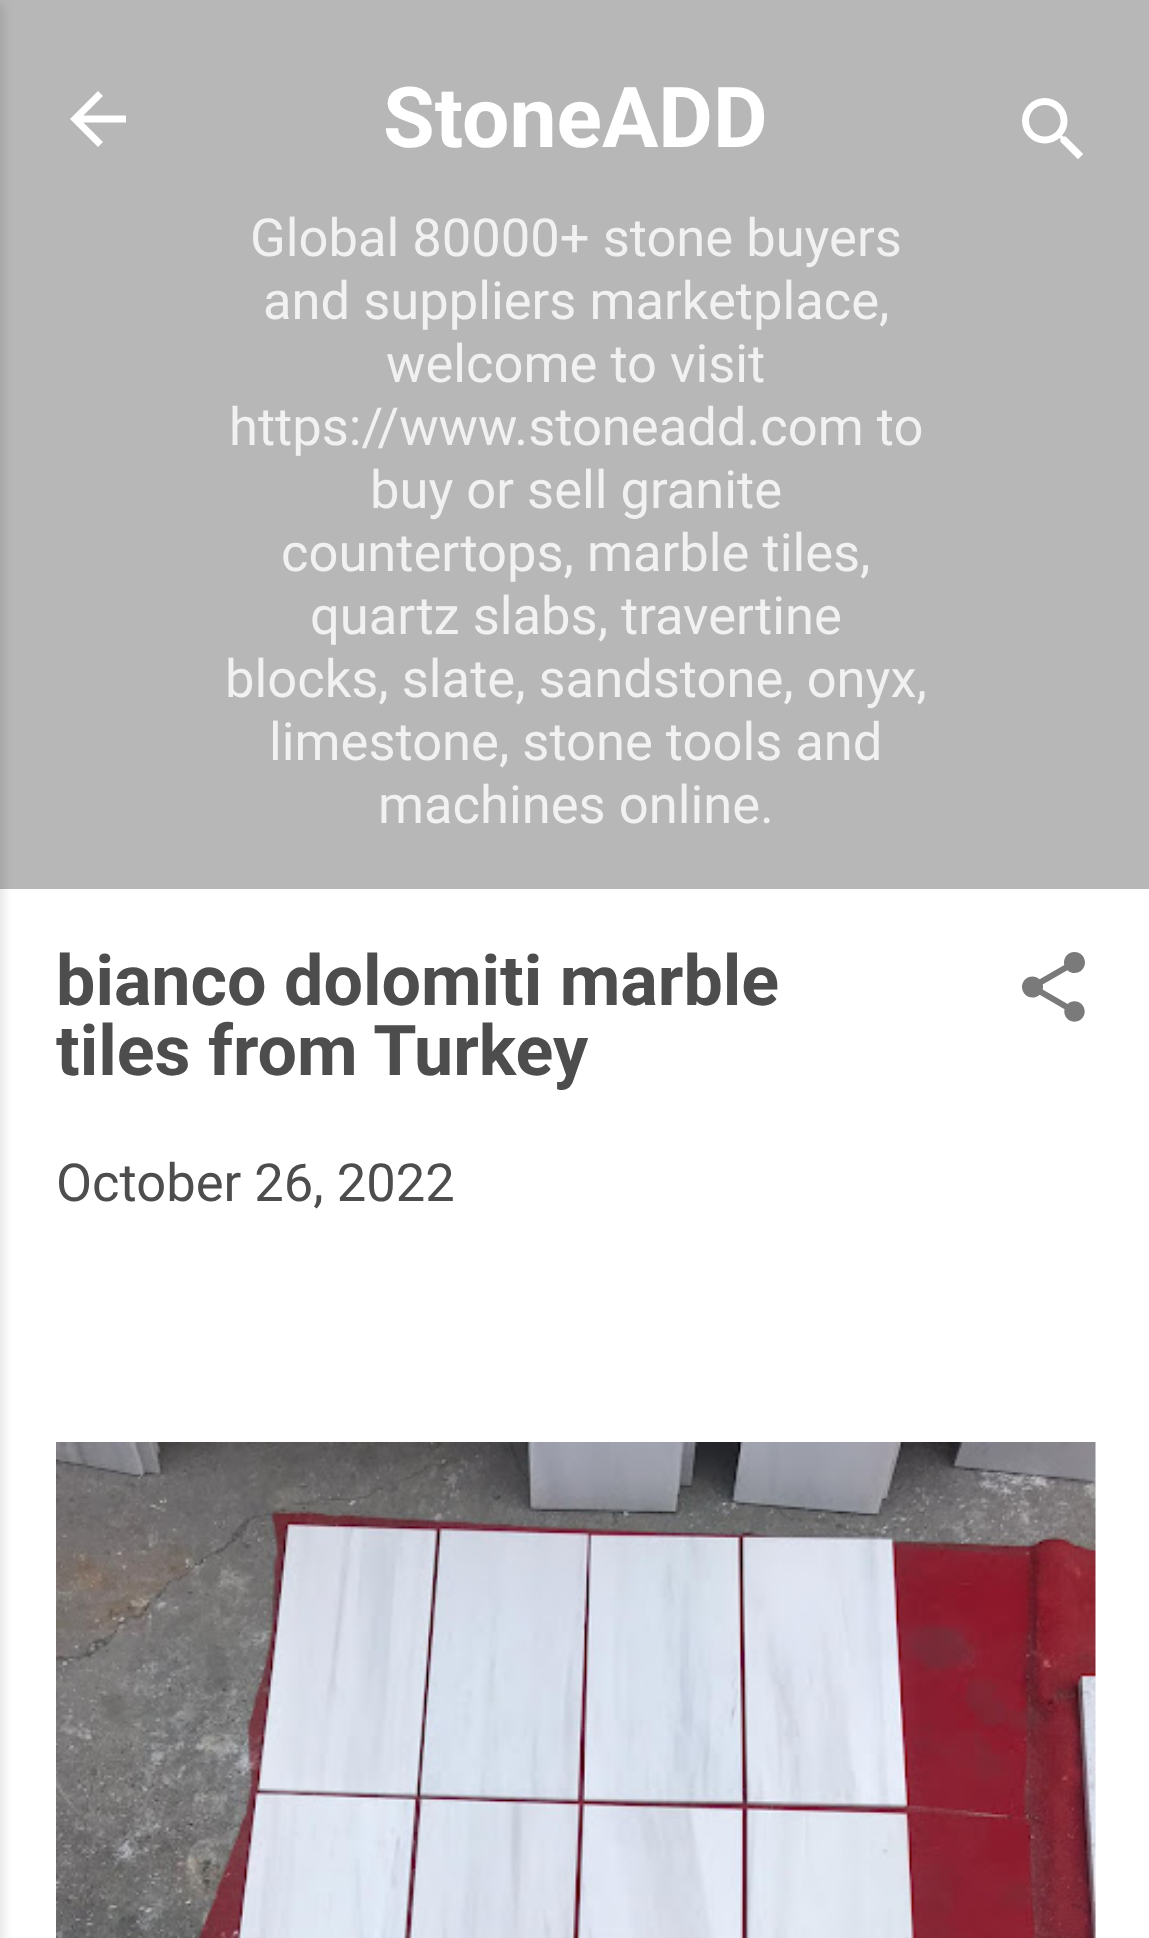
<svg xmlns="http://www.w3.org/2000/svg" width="1149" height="1938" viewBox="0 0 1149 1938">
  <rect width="100%" height="100%" fill="#b7b7b7"/>
  <path d="M0 889h1149v1049H0z" fill="#fff"/>
  <path d="M-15 4h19v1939H-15z" fill="#0000001a" filter="blur(5px)"/>
  <image x="70" y="91" width="56" height="56" href="img/1.png"/>
  <image x="1022" y="98" width="61" height="61" href="img/2.png"/>
  <image x="1022" y="952" width="63" height="70" href="img/3.png"/>
  <image x="56" y="1442" width="1040" height="496" href="img/4.png"/>
  <text x="383" y="147" font-family="Roboto" font-size="84" font-weight="bold" fill="#fff">StoneADD</text>
  <g font-family="Roboto" font-size="52.5" fill="#f1f1f1">
    <text x="250" y="256">Global 80000+ stone buyers</text>
    <text x="263" y="319">and suppliers marketplace,</text>
    <text x="386" y="382">welcome to visit</text>
    <text x="229" y="445">https://www.stoneadd.com to</text>
    <text x="370" y="508">buy or sell granite</text>
    <text x="281" y="571">countertops, marble tiles,</text>
    <text x="310" y="634">quartz slabs, travertine</text>
    <text x="225" y="697">blocks, slate, sandstone, onyx,</text>
    <text x="269" y="760">limestone, stone tools and</text>
    <text x="378" y="823">machines online.</text>
  </g>
  <g font-family="Roboto" font-size="70" font-weight="bold" fill="#4d4d4d">
    <text x="56" y="1005">bianco dolomiti marble</text>
    <text x="56" y="1075">tiles from Turkey</text>
  </g>
  <text x="56" y="1201" font-family="Roboto" font-size="52.5" fill="#4d4d4d">October 26, 2022</text>
</svg>
